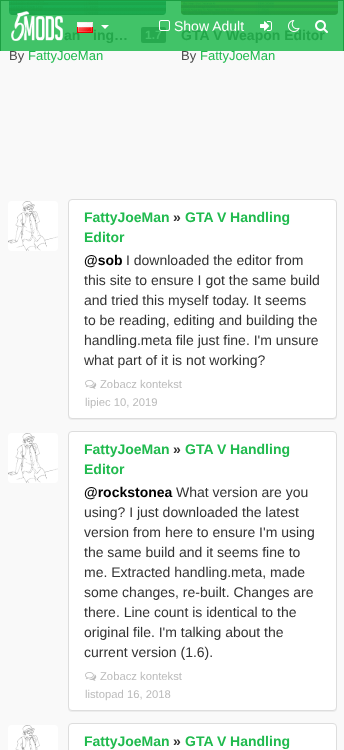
<svg xmlns="http://www.w3.org/2000/svg" width="344" height="750" viewBox="0 0 344 750">
  <defs>
    <linearGradient id="g1" gradientUnits="userSpaceOnUse" x1="88" y1="-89" x2="88" y2="15"><stop offset="0.5" stop-color="#1b9e42" stop-opacity="0"/><stop offset="0.75" stop-color="#1b9e42" stop-opacity="0.25"/><stop offset="1" stop-color="#1b9e42" stop-opacity="0.75"/></linearGradient>
    <linearGradient id="g2" gradientUnits="userSpaceOnUse" x1="260" y1="-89" x2="260" y2="15"><stop offset="0.5" stop-color="#1b9e42" stop-opacity="0"/><stop offset="0.75" stop-color="#1b9e42" stop-opacity="0.25"/><stop offset="1" stop-color="#1b9e42" stop-opacity="0.75"/></linearGradient>
  </defs>
  <rect width="100%" height="100%" fill="#f9f9f9"/>
  <path d="M1 1h342v50H1z" fill="#41c368"/>
  <image x="9" y="1" width="157" height="14" href="img/7.png"/>
  <rect x="9" y="-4" width="157" height="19" rx="4" fill="url(#g1)"/>
  <image x="181" y="1" width="157" height="14" href="img/8.png"/>
  <rect x="181" y="-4" width="157" height="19" rx="4" fill="url(#g2)"/>
  <path d="M0 0h344v1H0z" fill="#1b9e42"/>
  <path d="M343 0h1v51H343z" fill="#1b9e42"/>
  <path d="M0 0h1v51H0z" fill="#1b9e42"/>
  <image x="11" y="11" width="52" height="30" href="img/1.png"/>
  <path d="M101 25H109L105 29Z" fill="#fff"/>
  <rect x="141" y="27" width="25" height="16" rx="2" fill="#26a94e"/>
  <image x="8" y="201" width="50" height="50" href="img/9.png"/>
  <rect x="68" y="200" width="269" height="220" rx="4" fill="#0000000d" filter="blur(0.5px)"/>
  <rect x="68.5" y="199.5" width="268" height="219" rx="3.5" fill="#fff" stroke="#ddd"/>
  <image x="85" y="380" width="12" height="9" href="img/10.png"/>
  <image x="8" y="433" width="50" height="50" href="img/9.png"/>
  <rect x="68" y="432" width="269" height="280" rx="4" fill="#0000000d" filter="blur(0.5px)"/>
  <rect x="68.5" y="431.5" width="268" height="279" rx="3.5" fill="#fff" stroke="#ddd"/>
  <image x="85" y="672" width="12" height="9" href="img/10.png"/>
  <image x="8" y="725" width="50" height="25" href="img/11.png"/>
  <rect x="68.5" y="723.5" width="268" height="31" rx="3.5" fill="#fff" stroke="#ddd"/>
  <text x="174" y="31" font-family="Liberation Sans" font-size="14" fill="#fff">Show Adult</text>
  <text x="64" y="40" font-family="Liberation Sans" font-size="14" font-weight="bold" fill="#23a64a">an</text>
  <image x="77" y="22" width="16" height="11" href="img/2.png"/>
  <text x="93" y="40" font-family="Liberation Sans" font-size="14" font-weight="bold" fill="#23a64a">ing…</text>
  <text x="145" y="39" font-family="Liberation Sans" font-size="12" font-weight="bold" fill="#41c368">1.7</text>
  <image x="159" y="20" width="11" height="11" href="img/3.png"/>
  <text x="9" y="60" font-family="Liberation Sans" font-size="13" fill="#4b4b4b">By</text>
  <text x="28" y="60" font-family="Liberation Sans" font-size="13" fill="#20ba4e">FattyJoeMan</text>
  <text x="181" y="40" font-family="Liberation Sans" font-size="14" font-weight="bold" fill="#23a64a">GTA V Weapon Editor</text>
  <image x="315" y="20" width="13" height="13" href="img/6.png"/>
  <image x="288" y="20" width="12" height="12" href="img/5.png"/>
  <image x="260" y="21" width="12" height="10" href="img/4.png"/>
  <text x="181" y="60" font-family="Liberation Sans" font-size="13" fill="#4b4b4b">By</text>
  <text x="200" y="60" font-family="Liberation Sans" font-size="13" fill="#20ba4e">FattyJoeMan</text>
  <text x="84" y="222" font-family="Liberation Sans" font-size="14" font-weight="bold" fill="#20ba4e">FattyJoeMan</text>
  <text x="173" y="222" font-family="Liberation Sans" font-size="14" font-weight="bold" fill="#333">»</text>
  <g font-family="Liberation Sans" font-size="14" font-weight="bold" fill="#20ba4e">
    <text x="185" y="222">GTA V Handling</text>
    <text x="84" y="242">Editor</text>
  </g>
  <text x="84" y="265" font-family="Liberation Sans" font-size="14" font-weight="bold" fill="#000">@sob</text>
  <g font-family="Liberation Sans" font-size="14" fill="#333">
    <text x="126" y="265">I downloaded the editor from</text>
    <text x="84" y="285">this site to ensure I got the same build</text>
    <text x="84" y="305">and tried this myself today. It seems</text>
    <text x="84" y="325">to be reading, editing and building the</text>
    <text x="84" y="345">handling.meta file just fine. I'm unsure</text>
    <text x="84" y="365">what part of it is not working?</text>
  </g>
  <g font-family="Liberation Sans" font-size="11.25" fill="#bbb">
    <text x="100" y="388">Zobacz kontekst</text>
    <text x="85" y="406">lipiec 10, 2019</text>
  </g>
  <text x="84" y="454" font-family="Liberation Sans" font-size="14" font-weight="bold" fill="#20ba4e">FattyJoeMan</text>
  <text x="173" y="454" font-family="Liberation Sans" font-size="14" font-weight="bold" fill="#333">»</text>
  <g font-family="Liberation Sans" font-size="14" font-weight="bold" fill="#20ba4e">
    <text x="185" y="454">GTA V Handling</text>
    <text x="84" y="474">Editor</text>
  </g>
  <text x="84" y="497" font-family="Liberation Sans" font-size="14" font-weight="bold" fill="#000">@rockstonea</text>
  <g font-family="Liberation Sans" font-size="14" fill="#333">
    <text x="176" y="497">What version are you</text>
    <text x="84" y="517">using? I just downloaded the latest</text>
    <text x="84" y="537">version from here to ensure I'm using</text>
    <text x="84" y="557">the same build and it seems fine to</text>
    <text x="84" y="577">me. Extracted handling.meta, made</text>
    <text x="84" y="597">some changes, re-built. Changes are</text>
    <text x="84" y="617">there. Line count is identical to the</text>
    <text x="84" y="637">original file. I'm talking about the</text>
    <text x="84" y="657">current version (1.6).</text>
  </g>
  <g font-family="Liberation Sans" font-size="11.25" fill="#bbb">
    <text x="100" y="680">Zobacz kontekst</text>
    <text x="85" y="698">listopad 16, 2018</text>
  </g>
  <text x="84" y="746" font-family="Liberation Sans" font-size="14" font-weight="bold" fill="#20ba4e">FattyJoeMan</text>
  <text x="173" y="746" font-family="Liberation Sans" font-size="14" font-weight="bold" fill="#333">»</text>
  <text x="185" y="746" font-family="Liberation Sans" font-size="14" font-weight="bold" fill="#20ba4e">GTA V Handling</text>
</svg>
